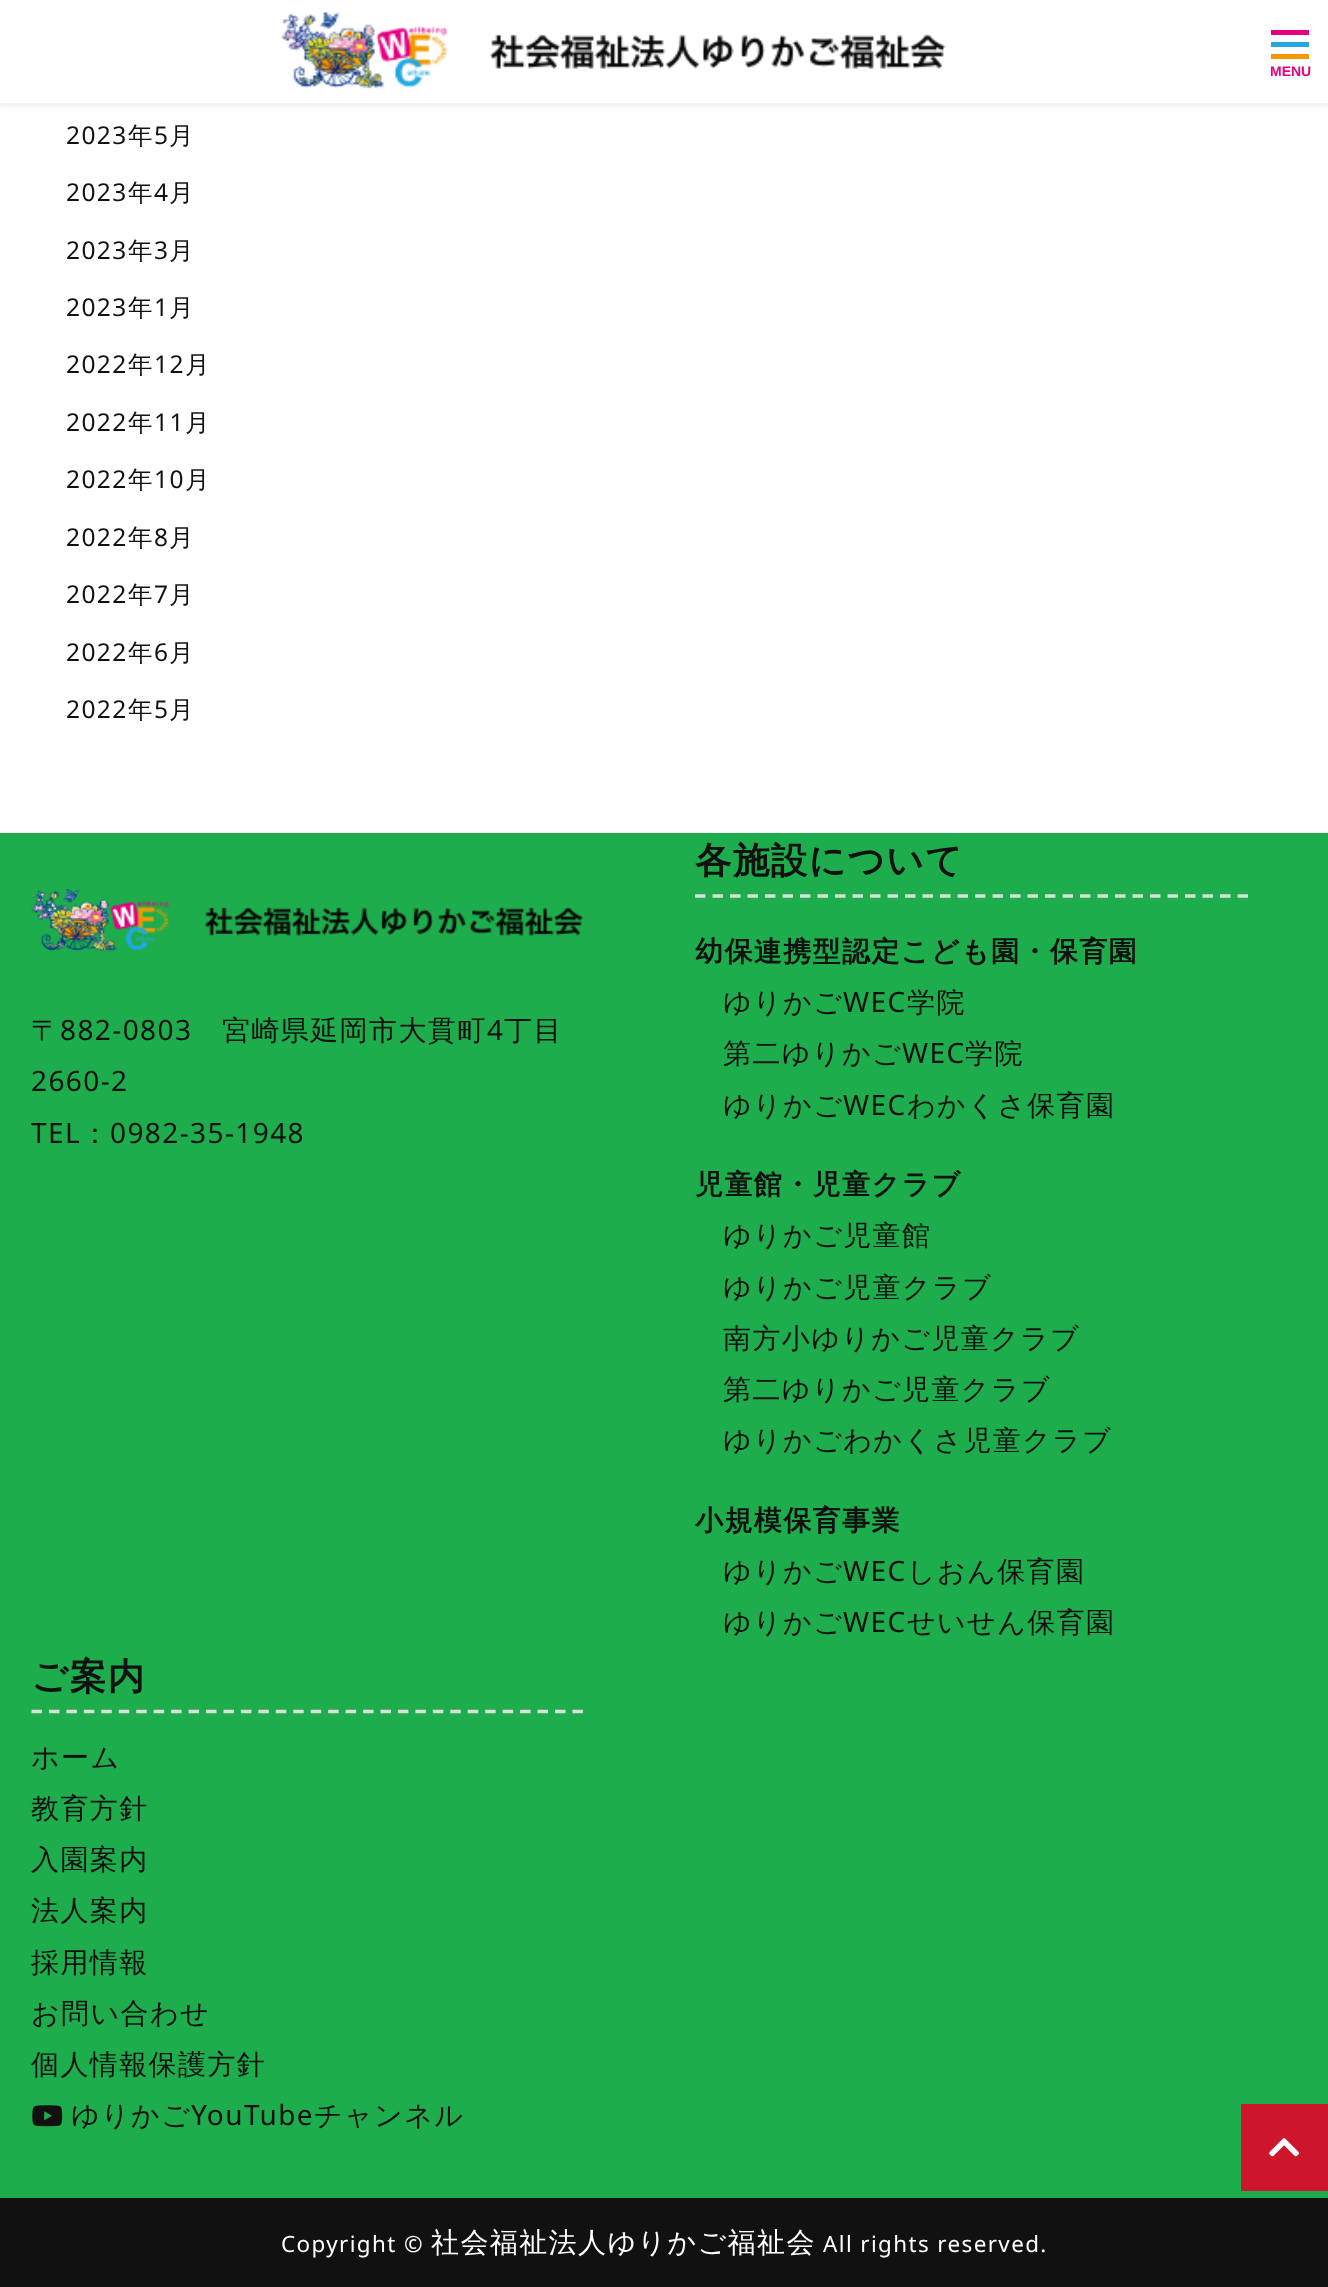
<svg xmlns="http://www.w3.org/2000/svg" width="1328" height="2287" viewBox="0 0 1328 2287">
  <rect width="100%" height="100%" fill="#fff"/>
  <path d="M-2 0h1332v107H-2z" fill="#0000000d" filter="blur(2px)"/>
  <path d="M0 0h1328v103H0z" fill="#fff"/>
  <image x="281" y="12" width="665" height="77" href="img/1.png"/>
  <path d="M1271 30h38v5H1271z" fill="#e4007f"/>
  <path d="M1271 42h38v5H1271z" fill="#26a7e1"/>
  <path d="M1271 54h38v5H1271z" fill="#f39800"/>
  <path d="M0 833h1328v1365H0z" fill="#1ead4c"/>
  <image x="31" y="889" width="552" height="63" href="img/2.png"/>
  <path d="M695 896H1248" fill="none" stroke="#ddd" stroke-width="3.5" stroke-dasharray="10.5 7"/>
  <path d="M31.5 1711.5H583" fill="none" stroke="#ddd" stroke-width="3.5" stroke-dasharray="10.5 6.95"/>
  <image x="32" y="2105" width="31" height="22" href="img/3.png"/>
  <path d="M0 2198h1328v89H0z" fill="#111"/>
  <path d="M1241 2104h87v87H1241z" fill="#cd162c"/>
  <image x="1269" y="2138" width="30" height="19" href="img/4.png"/>
  <text x="1270" y="76" font-family="Liberation Sans" font-size="14" font-weight="bold" fill="#e4007f">MENU</text>
  <text x="66" y="144" font-family="Noto Sans" font-size="24.5" letter-spacing="1.4" fill="#111">2023</text>
  <text x="128" y="144" font-family="WenQuanYi Zen Hei" font-size="24.5" font-weight="500" letter-spacing="1.4" fill="#111">年</text>
  <text x="154" y="144" font-family="Noto Sans" font-size="24.5" letter-spacing="1.4" fill="#111">5</text>
  <text x="169" y="144" font-family="WenQuanYi Zen Hei" font-size="24.5" font-weight="500" letter-spacing="1.4" fill="#111">月</text>
  <text x="66" y="201" font-family="Noto Sans" font-size="24.5" letter-spacing="1.4" fill="#111">2023</text>
  <text x="128" y="201" font-family="WenQuanYi Zen Hei" font-size="24.5" font-weight="500" letter-spacing="1.4" fill="#111">年</text>
  <text x="154" y="201" font-family="Noto Sans" font-size="24.5" letter-spacing="1.4" fill="#111">4</text>
  <text x="169" y="201" font-family="WenQuanYi Zen Hei" font-size="24.5" font-weight="500" letter-spacing="1.4" fill="#111">月</text>
  <text x="66" y="259" font-family="Noto Sans" font-size="24.5" letter-spacing="1.4" fill="#111">2023</text>
  <text x="128" y="259" font-family="WenQuanYi Zen Hei" font-size="24.5" font-weight="500" letter-spacing="1.4" fill="#111">年</text>
  <text x="154" y="259" font-family="Noto Sans" font-size="24.5" letter-spacing="1.4" fill="#111">3</text>
  <text x="169" y="259" font-family="WenQuanYi Zen Hei" font-size="24.5" font-weight="500" letter-spacing="1.4" fill="#111">月</text>
  <text x="66" y="316" font-family="Noto Sans" font-size="24.5" letter-spacing="1.4" fill="#111">2023</text>
  <text x="128" y="316" font-family="WenQuanYi Zen Hei" font-size="24.5" font-weight="500" letter-spacing="1.4" fill="#111">年</text>
  <text x="154" y="316" font-family="Noto Sans" font-size="24.5" letter-spacing="1.4" fill="#111">1</text>
  <text x="169" y="316" font-family="WenQuanYi Zen Hei" font-size="24.5" font-weight="500" letter-spacing="1.4" fill="#111">月</text>
  <text x="66" y="373" font-family="Noto Sans" font-size="24.5" letter-spacing="1.4" fill="#111">2022</text>
  <text x="128" y="373" font-family="WenQuanYi Zen Hei" font-size="24.5" font-weight="500" letter-spacing="1.4" fill="#111">年</text>
  <text x="154" y="373" font-family="Noto Sans" font-size="24.5" letter-spacing="1.4" fill="#111">12</text>
  <text x="185" y="373" font-family="WenQuanYi Zen Hei" font-size="24.5" font-weight="500" letter-spacing="1.4" fill="#111">月</text>
  <text x="66" y="431" font-family="Noto Sans" font-size="24.5" letter-spacing="1.4" fill="#111">2022</text>
  <text x="128" y="431" font-family="WenQuanYi Zen Hei" font-size="24.5" font-weight="500" letter-spacing="1.4" fill="#111">年</text>
  <text x="154" y="431" font-family="Noto Sans" font-size="24.5" letter-spacing="1.4" fill="#111">11</text>
  <text x="185" y="431" font-family="WenQuanYi Zen Hei" font-size="24.5" font-weight="500" letter-spacing="1.4" fill="#111">月</text>
  <text x="66" y="488" font-family="Noto Sans" font-size="24.5" letter-spacing="1.4" fill="#111">2022</text>
  <text x="128" y="488" font-family="WenQuanYi Zen Hei" font-size="24.5" font-weight="500" letter-spacing="1.4" fill="#111">年</text>
  <text x="154" y="488" font-family="Noto Sans" font-size="24.5" letter-spacing="1.4" fill="#111">10</text>
  <text x="185" y="488" font-family="WenQuanYi Zen Hei" font-size="24.5" font-weight="500" letter-spacing="1.4" fill="#111">月</text>
  <text x="66" y="546" font-family="Noto Sans" font-size="24.5" letter-spacing="1.4" fill="#111">2022</text>
  <text x="128" y="546" font-family="WenQuanYi Zen Hei" font-size="24.5" font-weight="500" letter-spacing="1.4" fill="#111">年</text>
  <text x="154" y="546" font-family="Noto Sans" font-size="24.5" letter-spacing="1.4" fill="#111">8</text>
  <text x="169" y="546" font-family="WenQuanYi Zen Hei" font-size="24.5" font-weight="500" letter-spacing="1.4" fill="#111">月</text>
  <text x="66" y="603" font-family="Noto Sans" font-size="24.5" letter-spacing="1.4" fill="#111">2022</text>
  <text x="128" y="603" font-family="WenQuanYi Zen Hei" font-size="24.5" font-weight="500" letter-spacing="1.4" fill="#111">年</text>
  <text x="154" y="603" font-family="Noto Sans" font-size="24.5" letter-spacing="1.4" fill="#111">7</text>
  <text x="169" y="603" font-family="WenQuanYi Zen Hei" font-size="24.5" font-weight="500" letter-spacing="1.4" fill="#111">月</text>
  <text x="66" y="661" font-family="Noto Sans" font-size="24.5" letter-spacing="1.4" fill="#111">2022</text>
  <text x="128" y="661" font-family="WenQuanYi Zen Hei" font-size="24.5" font-weight="500" letter-spacing="1.4" fill="#111">年</text>
  <text x="154" y="661" font-family="Noto Sans" font-size="24.5" letter-spacing="1.4" fill="#111">6</text>
  <text x="169" y="661" font-family="WenQuanYi Zen Hei" font-size="24.5" font-weight="500" letter-spacing="1.4" fill="#111">月</text>
  <text x="66" y="718" font-family="Noto Sans" font-size="24.5" letter-spacing="1.4" fill="#111">2022</text>
  <text x="128" y="718" font-family="WenQuanYi Zen Hei" font-size="24.5" font-weight="500" letter-spacing="1.4" fill="#111">年</text>
  <text x="154" y="718" font-family="Noto Sans" font-size="24.5" letter-spacing="1.4" fill="#111">5</text>
  <text x="169" y="718" font-family="WenQuanYi Zen Hei" font-size="24.5" font-weight="500" letter-spacing="1.4" fill="#111">月</text>
  <text x="31" y="1040" font-family="WenQuanYi Zen Hei" font-size="28" font-weight="500" letter-spacing="1.4" fill="#111">〒</text>
  <text x="60" y="1040" font-family="Noto Sans" font-size="28" letter-spacing="1.4" fill="#111">882-0803</text>
  <text x="222" y="1040" font-family="WenQuanYi Zen Hei" font-size="28" font-weight="500" letter-spacing="1.4" fill="#111">宮崎県延岡市大貫町</text>
  <text x="487" y="1040" font-family="Noto Sans" font-size="28" letter-spacing="1.4" fill="#111">4</text>
  <text x="504" y="1040" font-family="WenQuanYi Zen Hei" font-size="28" font-weight="500" letter-spacing="1.4" fill="#111">丁目</text>
  <g font-family="Noto Sans" font-size="28" letter-spacing="1.4" fill="#111">
    <text x="31" y="1091">2660-2</text>
    <text x="31" y="1143">TEL</text>
  </g>
  <text x="81" y="1143" font-family="WenQuanYi Zen Hei" font-size="28" font-weight="500" letter-spacing="1.4" fill="#111">：</text>
  <text x="110" y="1143" font-family="Noto Sans" font-size="28" letter-spacing="1.4" fill="#111">0982-35-1948</text>
  <text x="695" y="873" font-family="WenQuanYi Zen Hei" font-size="36.5" font-weight="bold" letter-spacing="1.4" fill="#111">各施設について</text>
  <text x="695" y="961" font-family="WenQuanYi Zen Hei" font-size="28" font-weight="bold" letter-spacing="1.4" fill="#111">幼保連携型認定こども園・保育園</text>
  <text x="723" y="1012" font-family="WenQuanYi Zen Hei" font-size="28" font-weight="500" letter-spacing="1.4" fill="#111">ゆりかご</text>
  <text x="843" y="1012" font-family="Noto Sans" font-size="28" letter-spacing="1.4" fill="#111">WEC</text>
  <g font-family="WenQuanYi Zen Hei" font-size="28" font-weight="500" letter-spacing="1.4" fill="#111">
    <text x="907" y="1012">学院</text>
    <text x="723" y="1063">第二ゆりかご</text>
  </g>
  <text x="902" y="1063" font-family="Noto Sans" font-size="28" letter-spacing="1.4" fill="#111">WEC</text>
  <g font-family="WenQuanYi Zen Hei" font-size="28" font-weight="500" letter-spacing="1.4" fill="#111">
    <text x="965" y="1063">学院</text>
    <text x="723" y="1115">ゆりかご</text>
  </g>
  <text x="843" y="1115" font-family="Noto Sans" font-size="28" letter-spacing="1.4" fill="#111">WEC</text>
  <text x="907" y="1115" font-family="WenQuanYi Zen Hei" font-size="28" font-weight="500" letter-spacing="1.4" fill="#111">わかくさ保育園</text>
  <text x="695" y="1194" font-family="WenQuanYi Zen Hei" font-size="28" font-weight="bold" letter-spacing="1.4" fill="#111">児童館・児童クラブ</text>
  <g font-family="WenQuanYi Zen Hei" font-size="28" font-weight="500" letter-spacing="1.4" fill="#111">
    <text x="723" y="1245">ゆりかご児童館</text>
    <text x="723" y="1297">ゆりかご児童クラブ</text>
    <text x="723" y="1348">南方小ゆりかご児童クラブ</text>
    <text x="723" y="1399">第二ゆりかご児童クラブ</text>
    <text x="723" y="1450">ゆりかごわかくさ児童クラブ</text>
  </g>
  <text x="695" y="1530" font-family="WenQuanYi Zen Hei" font-size="28" font-weight="bold" letter-spacing="1.4" fill="#111">小規模保育事業</text>
  <text x="723" y="1581" font-family="WenQuanYi Zen Hei" font-size="28" font-weight="500" letter-spacing="1.4" fill="#111">ゆりかご</text>
  <text x="843" y="1581" font-family="Noto Sans" font-size="28" letter-spacing="1.4" fill="#111">WEC</text>
  <g font-family="WenQuanYi Zen Hei" font-size="28" font-weight="500" letter-spacing="1.4" fill="#111">
    <text x="907" y="1581">しおん保育園</text>
    <text x="723" y="1632">ゆりかご</text>
  </g>
  <text x="843" y="1632" font-family="Noto Sans" font-size="28" letter-spacing="1.4" fill="#111">WEC</text>
  <text x="907" y="1632" font-family="WenQuanYi Zen Hei" font-size="28" font-weight="500" letter-spacing="1.4" fill="#111">せいせん保育園</text>
  <text x="31" y="1689" font-family="WenQuanYi Zen Hei" font-size="36.5" font-weight="bold" letter-spacing="1.4" fill="#111">ご案内</text>
  <g font-family="WenQuanYi Zen Hei" font-size="28" font-weight="500" letter-spacing="1.4" fill="#111">
    <text x="31" y="1767">ホーム</text>
    <text x="31" y="1818">教育方針</text>
    <text x="31" y="1869">入園案内</text>
    <text x="31" y="1920">法人案内</text>
    <text x="31" y="1972">採用情報</text>
    <text x="31" y="2023">お問い合わせ</text>
    <text x="31" y="2074">個人情報保護方針</text>
    <text x="71" y="2125">ゆりかご</text>
  </g>
  <text x="191" y="2125" font-family="Noto Sans" font-size="28" letter-spacing="1.4" fill="#111">YouTube</text>
  <text x="314" y="2125" font-family="WenQuanYi Zen Hei" font-size="28" font-weight="500" letter-spacing="1.4" fill="#111">チャンネル</text>
  <text x="281" y="2252" font-family="Noto Sans" font-size="22.4" letter-spacing="1.4" fill="#fff">Copyright ©</text>
  <text x="431" y="2252" font-family="WenQuanYi Zen Hei" font-size="28" font-weight="500" letter-spacing="1.4" fill="#fff">社会福祉法人ゆりかご福祉会</text>
  <text x="823" y="2252" font-family="Noto Sans" font-size="22.4" letter-spacing="1.4" fill="#fff">All rights reserved.</text>
</svg>
